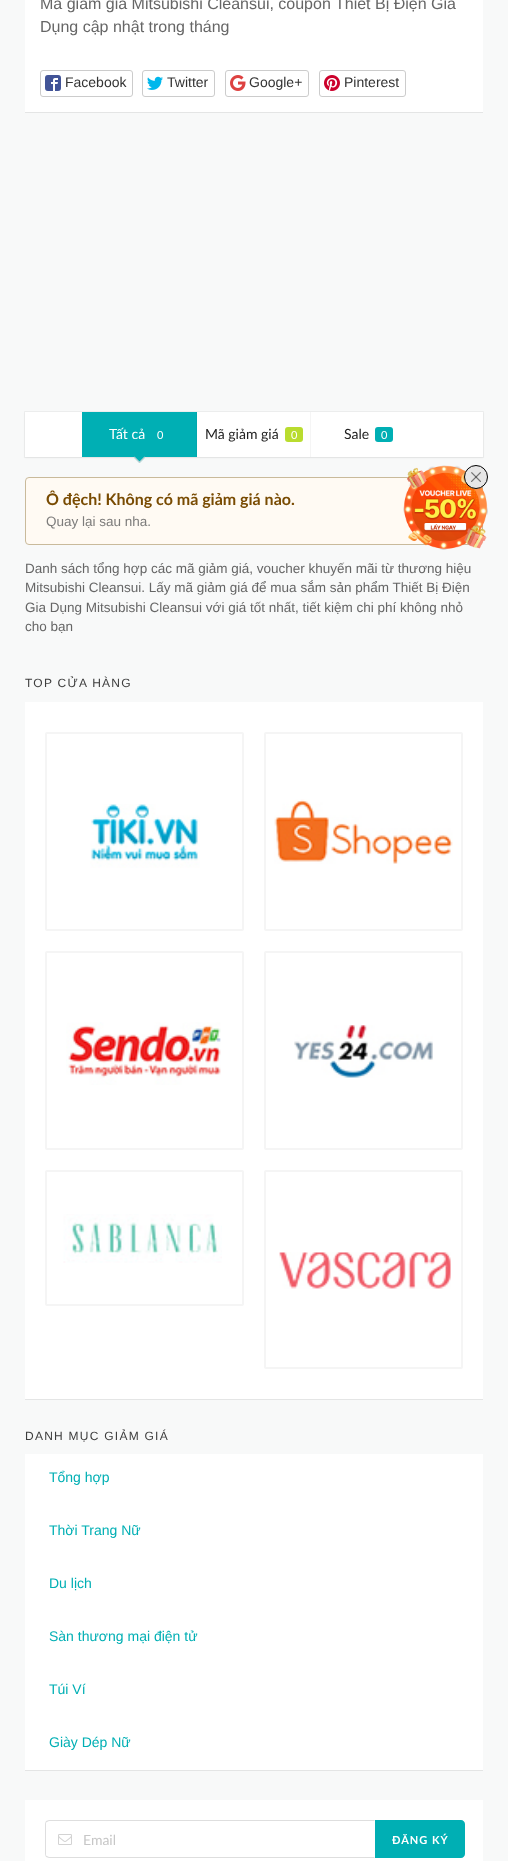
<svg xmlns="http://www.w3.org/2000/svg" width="508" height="1861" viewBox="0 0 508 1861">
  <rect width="100%" height="100%" fill="#f8f9f9"/>
  <path d="M25 -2h458v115H25z" fill="#00000014" filter="blur(0.5px)"/>
  <path d="M25 0h458v112H25z" fill="#fff"/>
  <rect x="40.5" y="70.5" width="92" height="26" rx="2.5" fill="none" stroke="#ccc"/>
  <image x="45" y="75" width="16" height="16" href="img/1.png"/>
  <rect x="142.5" y="70.5" width="72" height="26" rx="2.5" fill="none" stroke="#ccc"/>
  <image x="147" y="76" width="16" height="14" href="img/2.png"/>
  <rect x="225.5" y="70.5" width="83" height="26" rx="2.5" fill="none" stroke="#ccc"/>
  <image x="230" y="75" width="16" height="16" href="img/3.png"/>
  <rect x="319.5" y="70.5" width="86" height="26" rx="2.5" fill="none" stroke="#ccc"/>
  <image x="324" y="75" width="16" height="16" href="img/4.png"/>
  <path d="M25 413h458v45H25z" fill="#0000000d" filter="blur(1px)"/>
  <path d="M24.5 411.5h459v46H24.5z" fill="none" stroke="#27292b0d"/>
  <path d="M25 412h458v45H25z" fill="#fff"/>
  <path d="M82 412h114v45H82z" fill="#00afb4"/>
  <path d="M196 412h1v45H196z" fill="#00a8ad"/>
  <path d="M139.5 451.5L145 457.5L139.5 463L134 457.5Z" fill="#00afb4"/>
  <path d="M144.5 456.5L145 457.5L139.5 463L139 462Z" fill="#d4d4d5"/>
  <path d="M134.5 456.5L140 462L139.5 463L134 457.5Z" fill="#d4d4d5"/>
  <rect x="285" y="427" width="18" height="15" rx="3" fill="#b9dc2f"/>
  <path d="M310 412h1v45H310z" fill="#f5f5f5"/>
  <rect x="375" y="427" width="18" height="15" rx="3" fill="#00afb4"/>
  <rect x="25.5" y="477.5" width="457" height="67" rx="3.5" fill="#fffaf3" stroke="#c9ba9b"/>
  <path d="M25 703h458v697H25z" fill="#00000014" filter="blur(0.5px)"/>
  <path d="M25 702h458v697H25z" fill="#fff"/>
  <rect x="46" y="733" width="197" height="197" rx="1" fill="none" stroke="#f5f5f5" stroke-width="2"/>
  <image x="90" y="804" width="110" height="64" href="img/5.png"/>
  <rect x="265" y="733" width="197" height="197" rx="1" fill="none" stroke="#f5f5f5" stroke-width="2"/>
  <image x="274" y="799" width="179" height="65" href="img/6.png"/>
  <rect x="46" y="952" width="197" height="197" rx="1" fill="none" stroke="#f5f5f5" stroke-width="2"/>
  <image x="66" y="1022" width="155" height="63" href="img/7.png"/>
  <rect x="265" y="952" width="197" height="197" rx="1" fill="none" stroke="#f5f5f5" stroke-width="2"/>
  <image x="294" y="1025" width="139" height="53" href="img/8.png"/>
  <rect x="46" y="1171" width="197" height="134" rx="1" fill="none" stroke="#f5f5f5" stroke-width="2"/>
  <image x="63" y="1214" width="159" height="49" href="img/9.png"/>
  <rect x="265" y="1171" width="197" height="197" rx="1" fill="none" stroke="#f5f5f5" stroke-width="2"/>
  <image x="279" y="1252" width="172" height="37" href="img/10.png"/>
  <path d="M25 1455h458v316H25z" fill="#00000014" filter="blur(0.5px)"/>
  <path d="M25 1454h458v316H25z" fill="#fff"/>
  <path d="M25 1800h458v61H25z" fill="#fff"/>
  <image x="58" y="1834" width="14" height="11" href="img/11.png"/>
  <path d="M49 1820L46 1821L47 1822L49 1821H374L375 1820Z" fill="#dedede"/>
  <path d="M375 1858L374 1857H49L47 1856L46 1857L49 1858Z" fill="#dedede"/>
  <path d="M45 1824V1854C45 1855 45.5 1856 46 1857L47 1856C46 1856 46 1855 46 1854V1824C46 1823 46 1822 47 1822L46 1821C45.5 1822 45 1823 45 1824Z" fill="#22242626"/>
  <path d="M375 1820H461C463 1820 465 1822 465 1824V1854C465 1856 463 1858 461 1858H375Z" fill="#00afb4"/>
  <image x="403" y="465" width="85" height="85" href="img/12.png"/>
  <circle cx="476" cy="477" r="11.5" fill="#e6e6e6" stroke="#000"/>
  <image x="471" y="472" width="10" height="10" href="img/13.png"/>
  <g font-family="Liberation Sans" font-size="16" fill="#666">
    <text x="40" y="9">Mã giảm giá Mitsubishi Cleansui, coupon Thiết Bị Điện Gia</text>
    <text x="40" y="32">Dụng cập nhật trong tháng</text>
  </g>
  <g font-family="Liberation Sans" font-size="14" fill="#333">
    <text x="65" y="87">Facebook</text>
    <text x="167" y="87">Twitter</text>
    <text x="249" y="87">Google+</text>
    <text x="344" y="87">Pinterest</text>
  </g>
  <text x="109" y="439" font-family="Lato" font-size="14" fill="#fff">Tất cả</text>
  <text x="157" y="439" font-family="Lato" font-size="11" fill="#fff">0</text>
  <text x="205" y="439" font-family="Lato" font-size="14" fill="#212121">Mã giảm giá</text>
  <text x="291" y="439" font-family="Lato" font-size="11" fill="#fff">0</text>
  <text x="344" y="439" font-family="Lato" font-size="14" fill="#212121">Sale</text>
  <text x="381" y="439" font-family="Lato" font-size="11" fill="#fff">0</text>
  <text x="46" y="505" font-family="Lato" font-size="16" font-weight="bold" fill="#794b02">Ô đệch! Không có mã giảm giá nào.</text>
  <text x="46" y="526" font-family="Liberation Sans" font-size="13.5" fill="#7d7c7b">Quay lại sau nha.</text>
  <g font-family="Liberation Sans" font-size="13.5" fill="#666">
    <text x="25" y="573">Danh sách tổng hợp các mã giảm giá, voucher khuyến mãi từ thương hiệu</text>
    <text x="25" y="592">Mitsubishi Cleansui. Lấy mã giảm giá để mua sắm sản phẩm Thiết Bị Điện</text>
    <text x="25" y="612">Gia Dụng Mitsubishi Cleansui với giá tốt nhất, tiết kiệm chi phí không nhỏ</text>
    <text x="25" y="631">cho bạn</text>
  </g>
  <g font-family="Liberation Sans" font-size="12" letter-spacing="1.25" fill="#3d3d3d">
    <text x="25" y="687">TOP CỬA HÀNG</text>
    <text x="25" y="1440">DANH MỤC GIẢM GIÁ</text>
  </g>
  <g font-family="Liberation Sans" font-size="14" fill="#00afb4">
    <text x="49" y="1482">Tổng hợp</text>
    <text x="49" y="1535">Thời Trang Nữ</text>
    <text x="49" y="1588">Du lịch</text>
    <text x="49" y="1641">Sàn thương mại điện tử</text>
    <text x="49" y="1694">Túi Ví</text>
    <text x="49" y="1747">Giày Dép Nữ</text>
  </g>
  <text x="83" y="1845" font-family="Lato" font-size="14" fill="#c7c7c7">Email</text>
  <text x="392" y="1844" font-family="Lato" font-size="11" font-weight="bold" letter-spacing="1" fill="#fff">ĐĂNG KÝ</text>
</svg>
